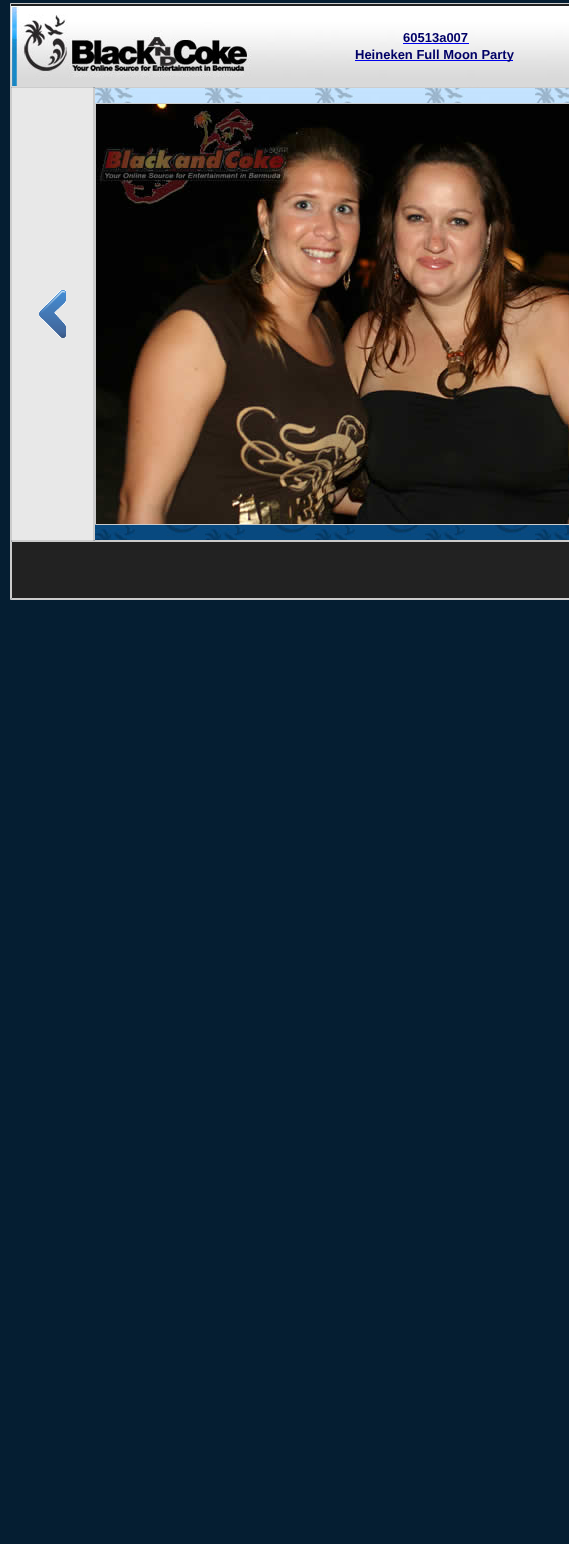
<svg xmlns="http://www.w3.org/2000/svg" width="569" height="1544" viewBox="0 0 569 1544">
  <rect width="100%" height="100%" fill="#051e32"/>
  <path d="M10.5 3.5h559v596H10.5z" fill="none" stroke="#ccc"/>
  <path d="M11 4h558v2H11z" fill="#222"/>
  <image x="11" y="6" width="558" height="81" href="img/1.png"/>
  <image x="20" y="14" width="231" height="64" href="img/2.png"/>
  <path d="M403 43h66v1H403z" fill="#00e"/>
  <path d="M355 60h158v1H355z" fill="#00e"/>
  <path d="M11.5 87.5h82v453H11.5z" fill="#e8e8e8" stroke="#ccc"/>
  <image x="39" y="290" width="27" height="48" href="img/3.png"/>
  <image x="95" y="88" width="474" height="452" href="img/4.png"/>
  <path d="M94.5 87.5h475v453H94.5z" fill="none" stroke="#ccc"/>
  <path d="M95.5 103.5h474v421H95.5z" fill="none" stroke="#ccc"/>
  <image x="96" y="104" width="473" height="420" href="img/5.png"/>
  <path d="M11.5 541.5h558v57H11.5z" fill="#222" stroke="#ccc"/>
  <g font-family="Liberation Sans" font-size="13" font-weight="bold" fill="#006">
    <text x="403" y="42">60513a007</text>
    <text x="355" y="59">Heineken Full Moon Party</text>
  </g>
</svg>
